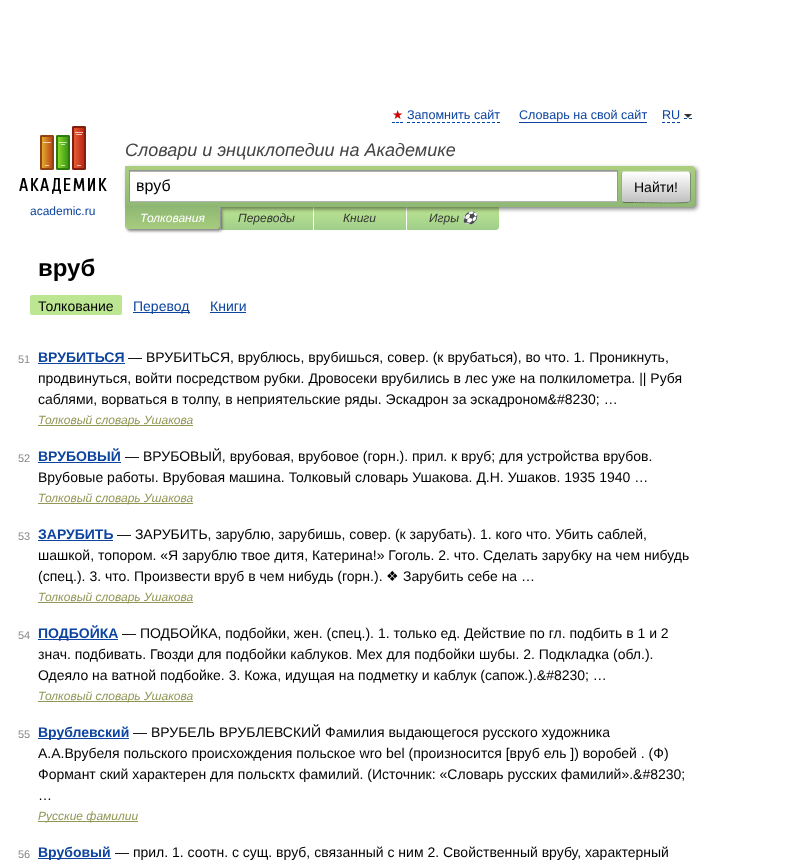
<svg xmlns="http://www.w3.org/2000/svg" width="796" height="864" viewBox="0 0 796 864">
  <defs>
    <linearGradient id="g1" gradientUnits="userSpaceOnUse" x1="267" y1="207" x2="267" y2="230"><stop offset="0" stop-color="#bde693"/><stop offset="1" stop-color="#a0ce8a"/></linearGradient>
    <linearGradient id="g2" gradientUnits="userSpaceOnUse" x1="360" y1="207" x2="360" y2="230"><stop offset="0" stop-color="#bde693"/><stop offset="1" stop-color="#a0ce8a"/></linearGradient>
    <linearGradient id="g3" gradientUnits="userSpaceOnUse" x1="453" y1="207" x2="453" y2="230"><stop offset="0" stop-color="#bde693"/><stop offset="1" stop-color="#a0ce8a"/></linearGradient>
    <linearGradient id="g4" gradientUnits="userSpaceOnUse" x1="410" y1="166" x2="410" y2="207"><stop offset="0" stop-color="#abcf7e"/><stop offset="1" stop-color="#8eb874"/></linearGradient>
    <clipPath id="clip1"><rect x="621" y="171" width="70" height="32" rx="3"/></clipPath>
    <linearGradient id="g5" gradientUnits="userSpaceOnUse" x1="656" y1="142" x2="656" y2="172"><stop offset="0" stop-color="#fff"/><stop offset="1" stop-color="#c1c1c1"/></linearGradient>
    <linearGradient id="g6" gradientUnits="userSpaceOnUse" x1="656" y1="172" x2="656" y2="202"><stop offset="0" stop-color="#fff"/><stop offset="1" stop-color="#c1c1c1"/></linearGradient>
    <linearGradient id="g7" gradientUnits="userSpaceOnUse" x1="656" y1="202" x2="656" y2="232"><stop offset="0" stop-color="#fff"/><stop offset="1" stop-color="#c1c1c1"/></linearGradient>
    <linearGradient id="g8" gradientUnits="userSpaceOnUse" x1="173" y1="207" x2="173" y2="229"><stop offset="0" stop-color="#8fb875"/><stop offset="1" stop-color="#a7cc7d"/></linearGradient>
  </defs>
  <rect width="100%" height="100%" fill="#fff"/>
  <path d="M392 122.5H395M396 122.5H399M400 122.5H403" fill="none" stroke="#04a"/>
  <path d="M407 122.5H500" fill="none" stroke="#04a" stroke-dasharray="3 2"/>
  <path d="M519 122h128v1H519z" fill="#0d44a0"/>
  <path d="M662 122.5H680" fill="none" stroke="#04a" stroke-dasharray="3 2"/>
  <path d="M684 118.5H687M689 118.5H692" fill="none" stroke="#04a"/>
  <path d="M684 114H692L688 118Z" fill="#333"/>
  <path d="M221 207h92v23H221z" fill="url(#g1)"/>
  <path d="M314 207h92v23H314z" fill="url(#g2)"/>
  <path d="M407 207H499V227C499 228.5 497.5 230 496 230H407Z" fill="url(#g3)"/>
  <rect x="127" y="168" width="570" height="41" rx="3" fill="#00000080" filter="blur(2px)"/>
  <path d="M125 166H692C693.5 166 695 167.5 695 169V204C695 205.5 693.5 207 692 207H125Z" fill="url(#g4)"/>
  <path d="M130 172h487v29H130z" fill="#fff"/>
  <path d="M130 171h487v1H130z" fill="#b3b3b3"/>
  <path d="M129 170h489v1H129z" fill="#949494"/>
  <path d="M617 170h1v32H617z" fill="#949494"/>
  <path d="M129 201h489v1H129z" fill="#b4b4b4"/>
  <path d="M129 170h1v32H129z" fill="#949494"/>
  <g clip-path="url(#clip1)">
    <path d="M621 171h70v1H621z" fill="url(#g5)"/>
    <path d="M621 172h70v30H621z" fill="url(#g6)"/>
    <path d="M621 202h70v1H621z" fill="url(#g7)"/>
  </g>
  <path d="M622 172L624 171.5H634.5C641 171.5 687.5 170.5 689.5 172H690" fill="none" stroke="#d1e4bc"/>
  <path d="M690 172C690 172.5 690.5 173.5 690.5 174V200C690.5 200.5 690 201.5 690 202" fill="none" stroke="#7a8e69"/>
  <path d="M690 202H689.5C687.5 203.5 641 202.5 634.5 202.5H624L622 202" fill="none" stroke="#5d7250"/>
  <path d="M622 202C622 201.5 621.5 200.5 621.5 200V174C621.5 173.5 622 172.5 622 172" fill="none" stroke="#9aae89"/>
  <image x="19" y="126" width="88" height="68" href="img/1.png"/>
  <rect x="127" y="209" width="95" height="22" rx="3" fill="#00000080" filter="blur(1.5px)"/>
  <path d="M125 207H220V226C220 227.5 218.5 229 217 229H128C126.5 229 125 227.5 125 226Z" fill="url(#g8)"/>
  <rect x="30" y="295" width="92" height="20" rx="2" fill="#bde693"/>
  <path d="M133 312h57v1H133z" fill="#0d44a0"/>
  <path d="M210 312h36v1H210z" fill="#0d44a0"/>
  <path d="M38 363h87v1H38z" fill="#0d44a0"/>
  <path d="M38 425h155v1H38z" fill="#939756"/>
  <path d="M38 462h83v1H38z" fill="#0d44a0"/>
  <path d="M38 503h155v1H38z" fill="#939756"/>
  <path d="M38 540h75v1H38z" fill="#0d44a0"/>
  <path d="M38 602h155v1H38z" fill="#939756"/>
  <path d="M38 639h80v1H38z" fill="#0d44a0"/>
  <path d="M38 701h155v1H38z" fill="#939756"/>
  <path d="M38 738h91v1H38z" fill="#0d44a0"/>
  <path d="M38 821h100v1H38z" fill="#939756"/>
  <path d="M38 858h73v1H38z" fill="#0d44a0"/>
  <text x="392" y="119" font-family="DejaVu Sans" font-size="12.6" fill="#c00">★</text>
  <g font-family="Liberation Sans" font-size="12.6" fill="#0d44a0">
    <text x="407" y="119">Запомнить сайт</text>
    <text x="519" y="119">Словарь на свой сайт</text>
    <text x="662" y="119">RU</text>
  </g>
  <text x="125" y="156" font-family="Liberation Sans" font-size="18" font-style="italic" fill="#454545">Словари и энциклопедии на Академике</text>
  <text x="136" y="191" font-family="Liberation Sans" font-size="16" fill="#000">вруб</text>
  <text x="634" y="192" font-family="Liberation Sans" font-size="14" fill="#000">Найти!</text>
  <text x="30" y="215" font-family="Liberation Sans" font-size="12" fill="#0d44a0">academic.ru</text>
  <text x="140" y="222" font-family="Liberation Sans" font-size="12" font-style="italic" fill="#fff">Толкования</text>
  <g font-family="Liberation Sans" font-size="12" font-style="italic" fill="#353535">
    <text x="238" y="222">Переводы</text>
    <text x="343" y="222">Книги</text>
    <text x="429" y="222">Игры</text>
  </g>
  <text x="462" y="222" font-family="Noto Color Emoji" font-size="12" font-style="italic" fill="#353535">⚽</text>
  <text x="38" y="276" font-family="Liberation Sans" font-size="24" font-weight="bold" fill="#000">вруб</text>
  <text x="38" y="311" font-family="Liberation Sans" font-size="14" fill="#000">Толкование</text>
  <g font-family="Liberation Sans" font-size="14" fill="#0d44a0">
    <text x="133" y="311">Перевод</text>
    <text x="210" y="311">Книги</text>
  </g>
  <text x="18" y="363" font-family="Liberation Sans" font-size="11" fill="#898989">51</text>
  <text x="38" y="362" font-family="Liberation Sans" font-size="14" font-weight="bold" fill="#0d44a0">ВРУБИТЬСЯ</text>
  <g font-family="Liberation Sans" font-size="14" fill="#000">
    <text x="128" y="362">— ВРУБИТЬСЯ, врублюсь, врубишься, совер. (к врубаться), во что. 1. Проникнуть,</text>
    <text x="38" y="383">продвинуться, войти посредством рубки. Дровосеки врубились в лес уже на полкилометра. || Рубя</text>
    <text x="38" y="404">саблями, ворваться в толпу, в неприятельские ряды. Эскадрон за эскадроном&amp;#8230; …</text>
  </g>
  <text x="38" y="424" font-family="Liberation Sans" font-size="12" font-style="italic" fill="#939756">Толковый словарь Ушакова</text>
  <text x="18" y="462" font-family="Liberation Sans" font-size="11" fill="#898989">52</text>
  <text x="38" y="461" font-family="Liberation Sans" font-size="14" font-weight="bold" fill="#0d44a0">ВРУБОВЫЙ</text>
  <g font-family="Liberation Sans" font-size="14" fill="#000">
    <text x="125" y="461">— ВРУБОВЫЙ, врубовая, врубовое (горн.). прил. к вруб; для устройства врубов.</text>
    <text x="38" y="482">Врубовые работы. Врубовая машина. Толковый словарь Ушакова. Д.Н. Ушаков. 1935 1940 …</text>
  </g>
  <text x="38" y="502" font-family="Liberation Sans" font-size="12" font-style="italic" fill="#939756">Толковый словарь Ушакова</text>
  <text x="18" y="540" font-family="Liberation Sans" font-size="11" fill="#898989">53</text>
  <text x="38" y="539" font-family="Liberation Sans" font-size="14" font-weight="bold" fill="#0d44a0">ЗАРУБИТЬ</text>
  <g font-family="Liberation Sans" font-size="14" fill="#000">
    <text x="117" y="539">— ЗАРУБИТЬ, зарублю, зарубишь, совер. (к зарубать). 1. кого что. Убить саблей,</text>
    <text x="38" y="560">шашкой, топором. «Я зарублю твое дитя, Катерина!» Гоголь. 2. что. Сделать зарубку на чем нибудь</text>
    <text x="38" y="581">(спец.). 3. что. Произвести вруб в чем нибудь (горн.).</text>
  </g>
  <text x="386" y="581" font-family="DejaVu Sans" font-size="14" fill="#000">❖</text>
  <text x="403" y="581" font-family="Liberation Sans" font-size="14" fill="#000">Зарубить себе на …</text>
  <text x="38" y="601" font-family="Liberation Sans" font-size="12" font-style="italic" fill="#939756">Толковый словарь Ушакова</text>
  <text x="18" y="639" font-family="Liberation Sans" font-size="11" fill="#898989">54</text>
  <text x="38" y="638" font-family="Liberation Sans" font-size="14" font-weight="bold" fill="#0d44a0">ПОДБОЙКА</text>
  <g font-family="Liberation Sans" font-size="14" fill="#000">
    <text x="122" y="638">— ПОДБОЙКА, подбойки, жен. (спец.). 1. только ед. Действие по гл. подбить в 1 и 2</text>
    <text x="38" y="659">знач. подбивать. Гвозди для подбойки каблуков. Мех для подбойки шубы. 2. Подкладка (обл.).</text>
    <text x="38" y="680">Одеяло на ватной подбойке. 3. Кожа, идущая на подметку и каблук (сапож.).&amp;#8230; …</text>
  </g>
  <text x="38" y="700" font-family="Liberation Sans" font-size="12" font-style="italic" fill="#939756">Толковый словарь Ушакова</text>
  <text x="18" y="738" font-family="Liberation Sans" font-size="11" fill="#898989">55</text>
  <text x="38" y="737" font-family="Liberation Sans" font-size="14" font-weight="bold" fill="#0d44a0">Врублевский</text>
  <g font-family="Liberation Sans" font-size="14" fill="#000">
    <text x="133" y="737">— ВРУБЕЛЬ ВРУБЛЕВСКИЙ Фамилия выдающегося русского художника</text>
    <text x="38" y="758">А.А.Врубеля польского происхождения польское wro bel (произносится [вруб ель ]) воробей . (Ф)</text>
    <text x="38" y="779">Формант ский характерен для польсктх фамилий. (Источник: «Словарь русских фамилий».&amp;#8230;</text>
    <text x="38" y="800">…</text>
  </g>
  <text x="38" y="820" font-family="Liberation Sans" font-size="12" font-style="italic" fill="#939756">Русские фамилии</text>
  <text x="18" y="858" font-family="Liberation Sans" font-size="11" fill="#898989">56</text>
  <text x="38" y="857" font-family="Liberation Sans" font-size="14" font-weight="bold" fill="#0d44a0">Врубовый</text>
  <text x="115" y="857" font-family="Liberation Sans" font-size="14" fill="#000">— прил. 1. соотн. с сущ. вруб, связанный с ним 2. Свойственный врубу, характерный</text>
</svg>
